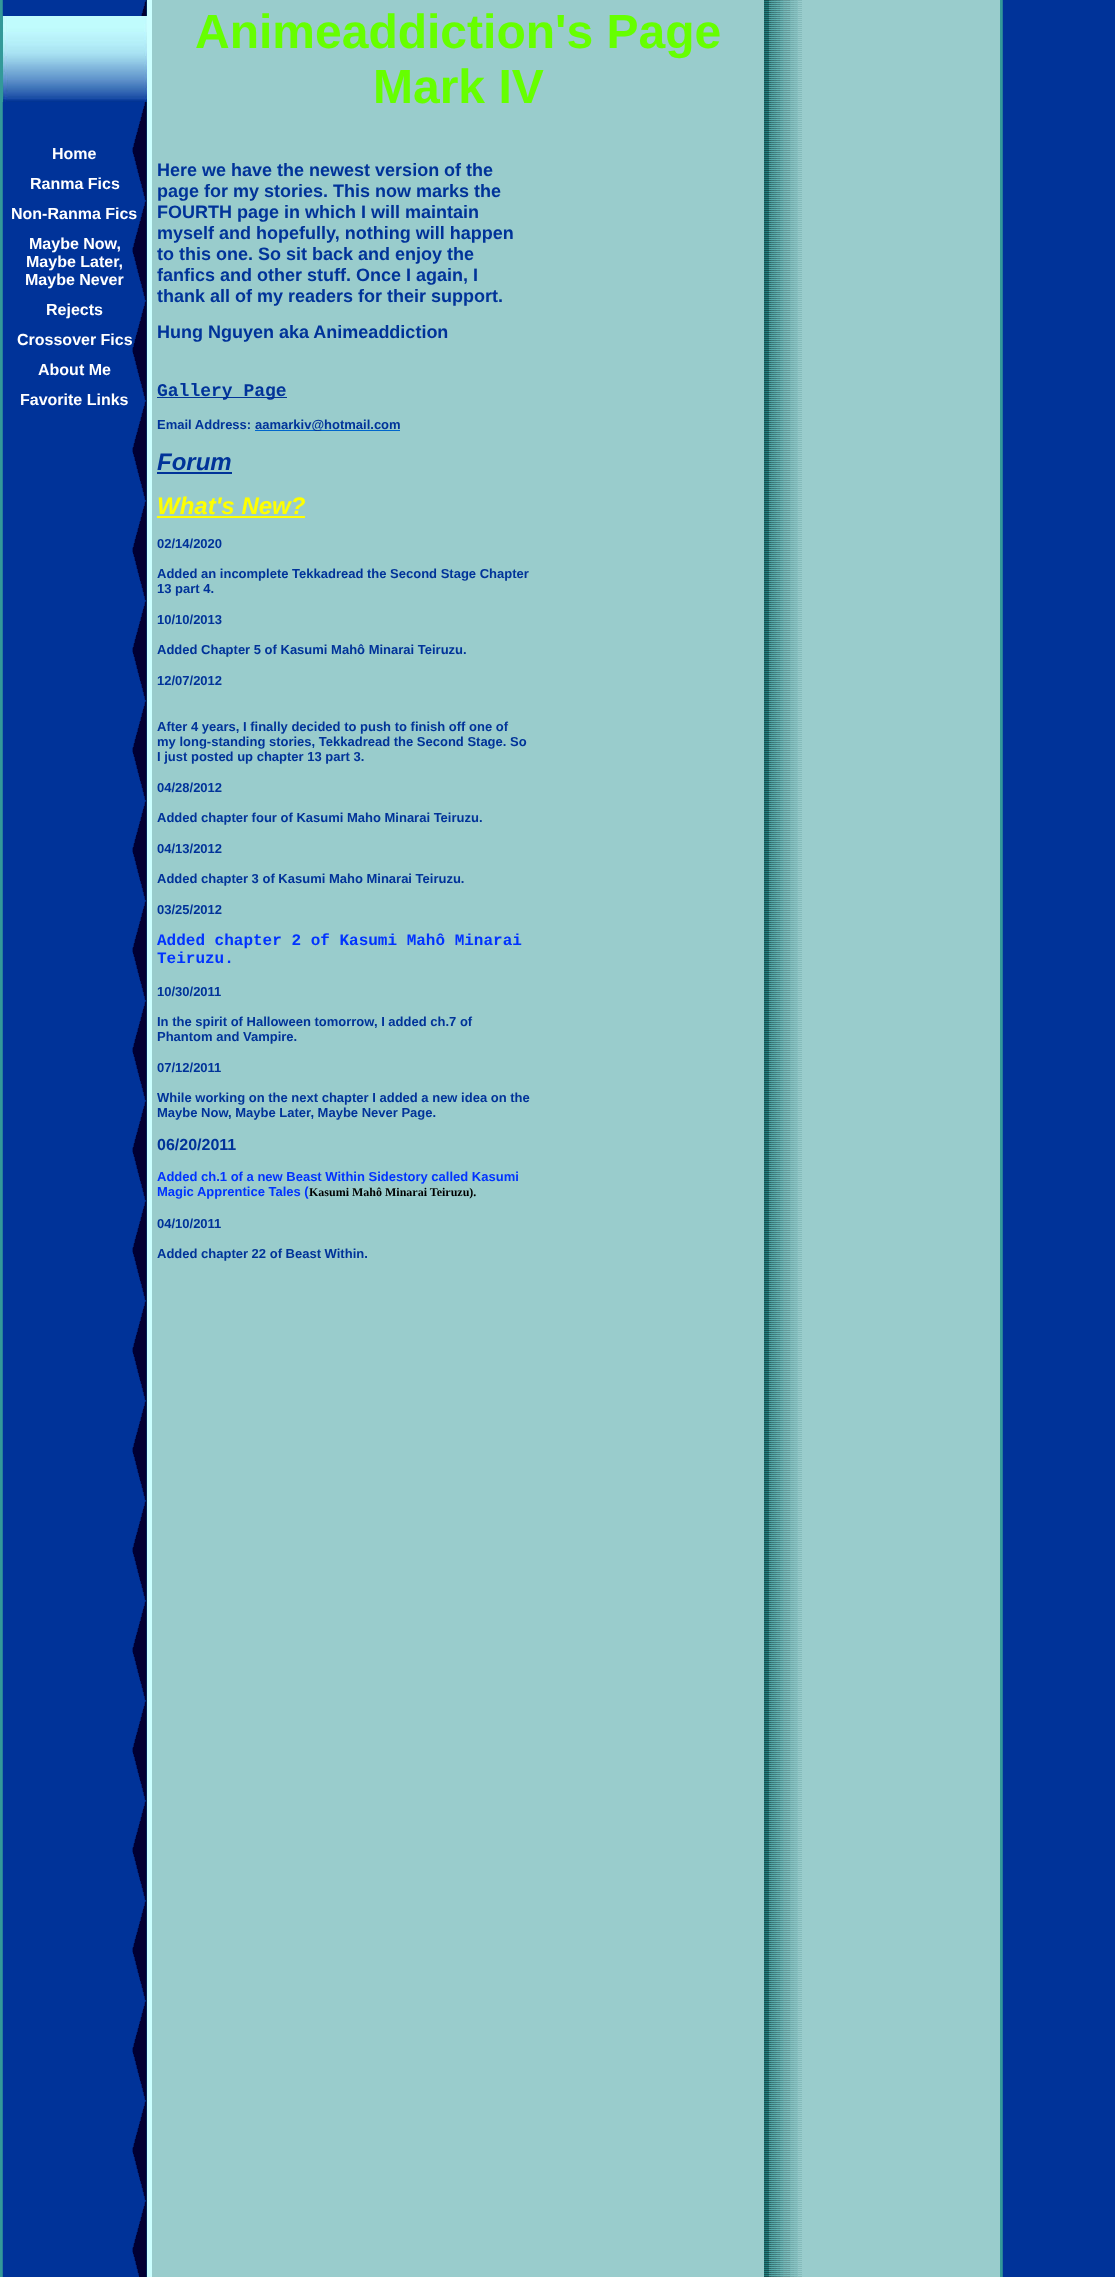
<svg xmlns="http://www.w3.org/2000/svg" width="1115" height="2277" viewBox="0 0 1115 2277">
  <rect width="100%" height="100%" fill="#fff"/>
  <image x="0" y="0" width="1115" height="2277" href="img/1.png"/>
  <image x="2" y="16" width="145" height="86" href="img/2.png"/>
  <path d="M157 397h130v1H157z" fill="#039"/>
  <path d="M255 430h145v1H255z" fill="#06c"/>
  <path d="M157 472h75v2H157z" fill="#039"/>
  <path d="M157 516h148v2H157z" fill="#ff0"/>
  <g font-family="Liberation Sans" font-size="48" font-weight="bold" fill="#6f0">
    <text x="195" y="48">Animeaddiction's Page</text>
    <text x="373" y="103">Mark IV</text>
  </g>
  <g font-family="Liberation Sans" font-size="16" font-weight="bold" fill="#fff">
    <text x="52" y="159">Home</text>
    <text x="30" y="189">Ranma Fics</text>
    <text x="11" y="219">Non-Ranma Fics</text>
    <text x="29" y="249">Maybe Now,</text>
    <text x="26" y="267">Maybe Later,</text>
    <text x="25" y="285">Maybe Never</text>
    <text x="46" y="315">Rejects</text>
    <text x="17" y="345">Crossover Fics</text>
    <text x="38" y="375">About Me</text>
    <text x="20" y="405">Favorite Links</text>
  </g>
  <g font-family="Liberation Sans" font-size="18" font-weight="bold" fill="#039">
    <text x="157" y="176">Here we have the newest version of the</text>
    <text x="157" y="197">page for my stories. This now marks the</text>
    <text x="157" y="218">FOURTH page in which I will maintain</text>
    <text x="157" y="239">myself and hopefully, nothing will happen</text>
    <text x="157" y="260">to this one. So sit back and enjoy the</text>
    <text x="157" y="281">fanfics and other stuff. Once I again, I</text>
    <text x="157" y="302">thank all of my readers for their support.</text>
    <text x="157" y="338">Hung Nguyen aka Animeaddiction</text>
  </g>
  <text x="157" y="396" font-family="Liberation Mono" font-size="18" font-weight="bold" fill="#039">Gallery Page</text>
  <g font-family="Liberation Sans" font-size="13" font-weight="bold" fill="#039">
    <text x="157" y="429">Email Address:</text>
    <text x="255" y="429">aamarkiv@hotmail.com</text>
  </g>
  <text x="157" y="470" font-family="Liberation Sans" font-size="24" font-weight="bold" font-style="italic" fill="#039">Forum</text>
  <text x="157" y="514" font-family="Liberation Sans" font-size="24" font-weight="bold" font-style="italic" fill="#ff0">What's New?</text>
  <g font-family="Liberation Sans" font-size="13" font-weight="bold" fill="#039">
    <text x="157" y="548">02/14/2020</text>
    <text x="157" y="578">Added an incomplete Tekkadread the Second Stage Chapter</text>
    <text x="157" y="593">13 part 4.</text>
    <text x="157" y="624">10/10/2013</text>
    <text x="157" y="654">Added Chapter 5 of Kasumi Mahô Minarai Teiruzu.</text>
    <text x="157" y="685">12/07/2012</text>
    <text x="157" y="731">After 4 years, I finally decided to push to finish off one of</text>
    <text x="157" y="746">my long-standing stories, Tekkadread the Second Stage. So</text>
    <text x="157" y="761">I just posted up chapter 13 part 3.</text>
    <text x="157" y="792">04/28/2012</text>
    <text x="157" y="822">Added chapter four of Kasumi Maho Minarai Teiruzu.</text>
    <text x="157" y="853">04/13/2012</text>
    <text x="157" y="883">Added chapter 3 of Kasumi Maho Minarai Teiruzu.</text>
    <text x="157" y="914">03/25/2012</text>
  </g>
  <g font-family="Liberation Mono" font-size="16" font-weight="bold" fill="#03f">
    <text x="157" y="945">Added chapter 2 of Kasumi Mahô Minarai</text>
    <text x="157" y="963">Teiruzu.</text>
  </g>
  <g font-family="Liberation Sans" font-size="13" font-weight="bold" fill="#039">
    <text x="157" y="996">10/30/2011</text>
    <text x="157" y="1026">In the spirit of Halloween tomorrow, I added ch.7 of</text>
    <text x="157" y="1041">Phantom and Vampire.</text>
    <text x="157" y="1072">07/12/2011</text>
    <text x="157" y="1102">While working on the next chapter I added a new idea on the</text>
    <text x="157" y="1117">Maybe Now, Maybe Later, Maybe Never Page.</text>
  </g>
  <text x="157" y="1150" font-family="Liberation Sans" font-size="16" font-weight="bold" fill="#039">06/20/2011</text>
  <g font-family="Liberation Sans" font-size="13" font-weight="bold" fill="#03f">
    <text x="157" y="1181">Added ch.1 of a new Beast Within Sidestory called Kasumi</text>
    <text x="157" y="1196">Magic Apprentice Tales (</text>
  </g>
  <text x="309" y="1196" font-family="Liberation Serif" font-size="12" font-weight="bold" fill="#000">Kasumi Mahô Minarai Teiruzu).</text>
  <g font-family="Liberation Sans" font-size="13" font-weight="bold" fill="#039">
    <text x="157" y="1228">04/10/2011</text>
    <text x="157" y="1258">Added chapter 22 of Beast Within.</text>
  </g>
</svg>
